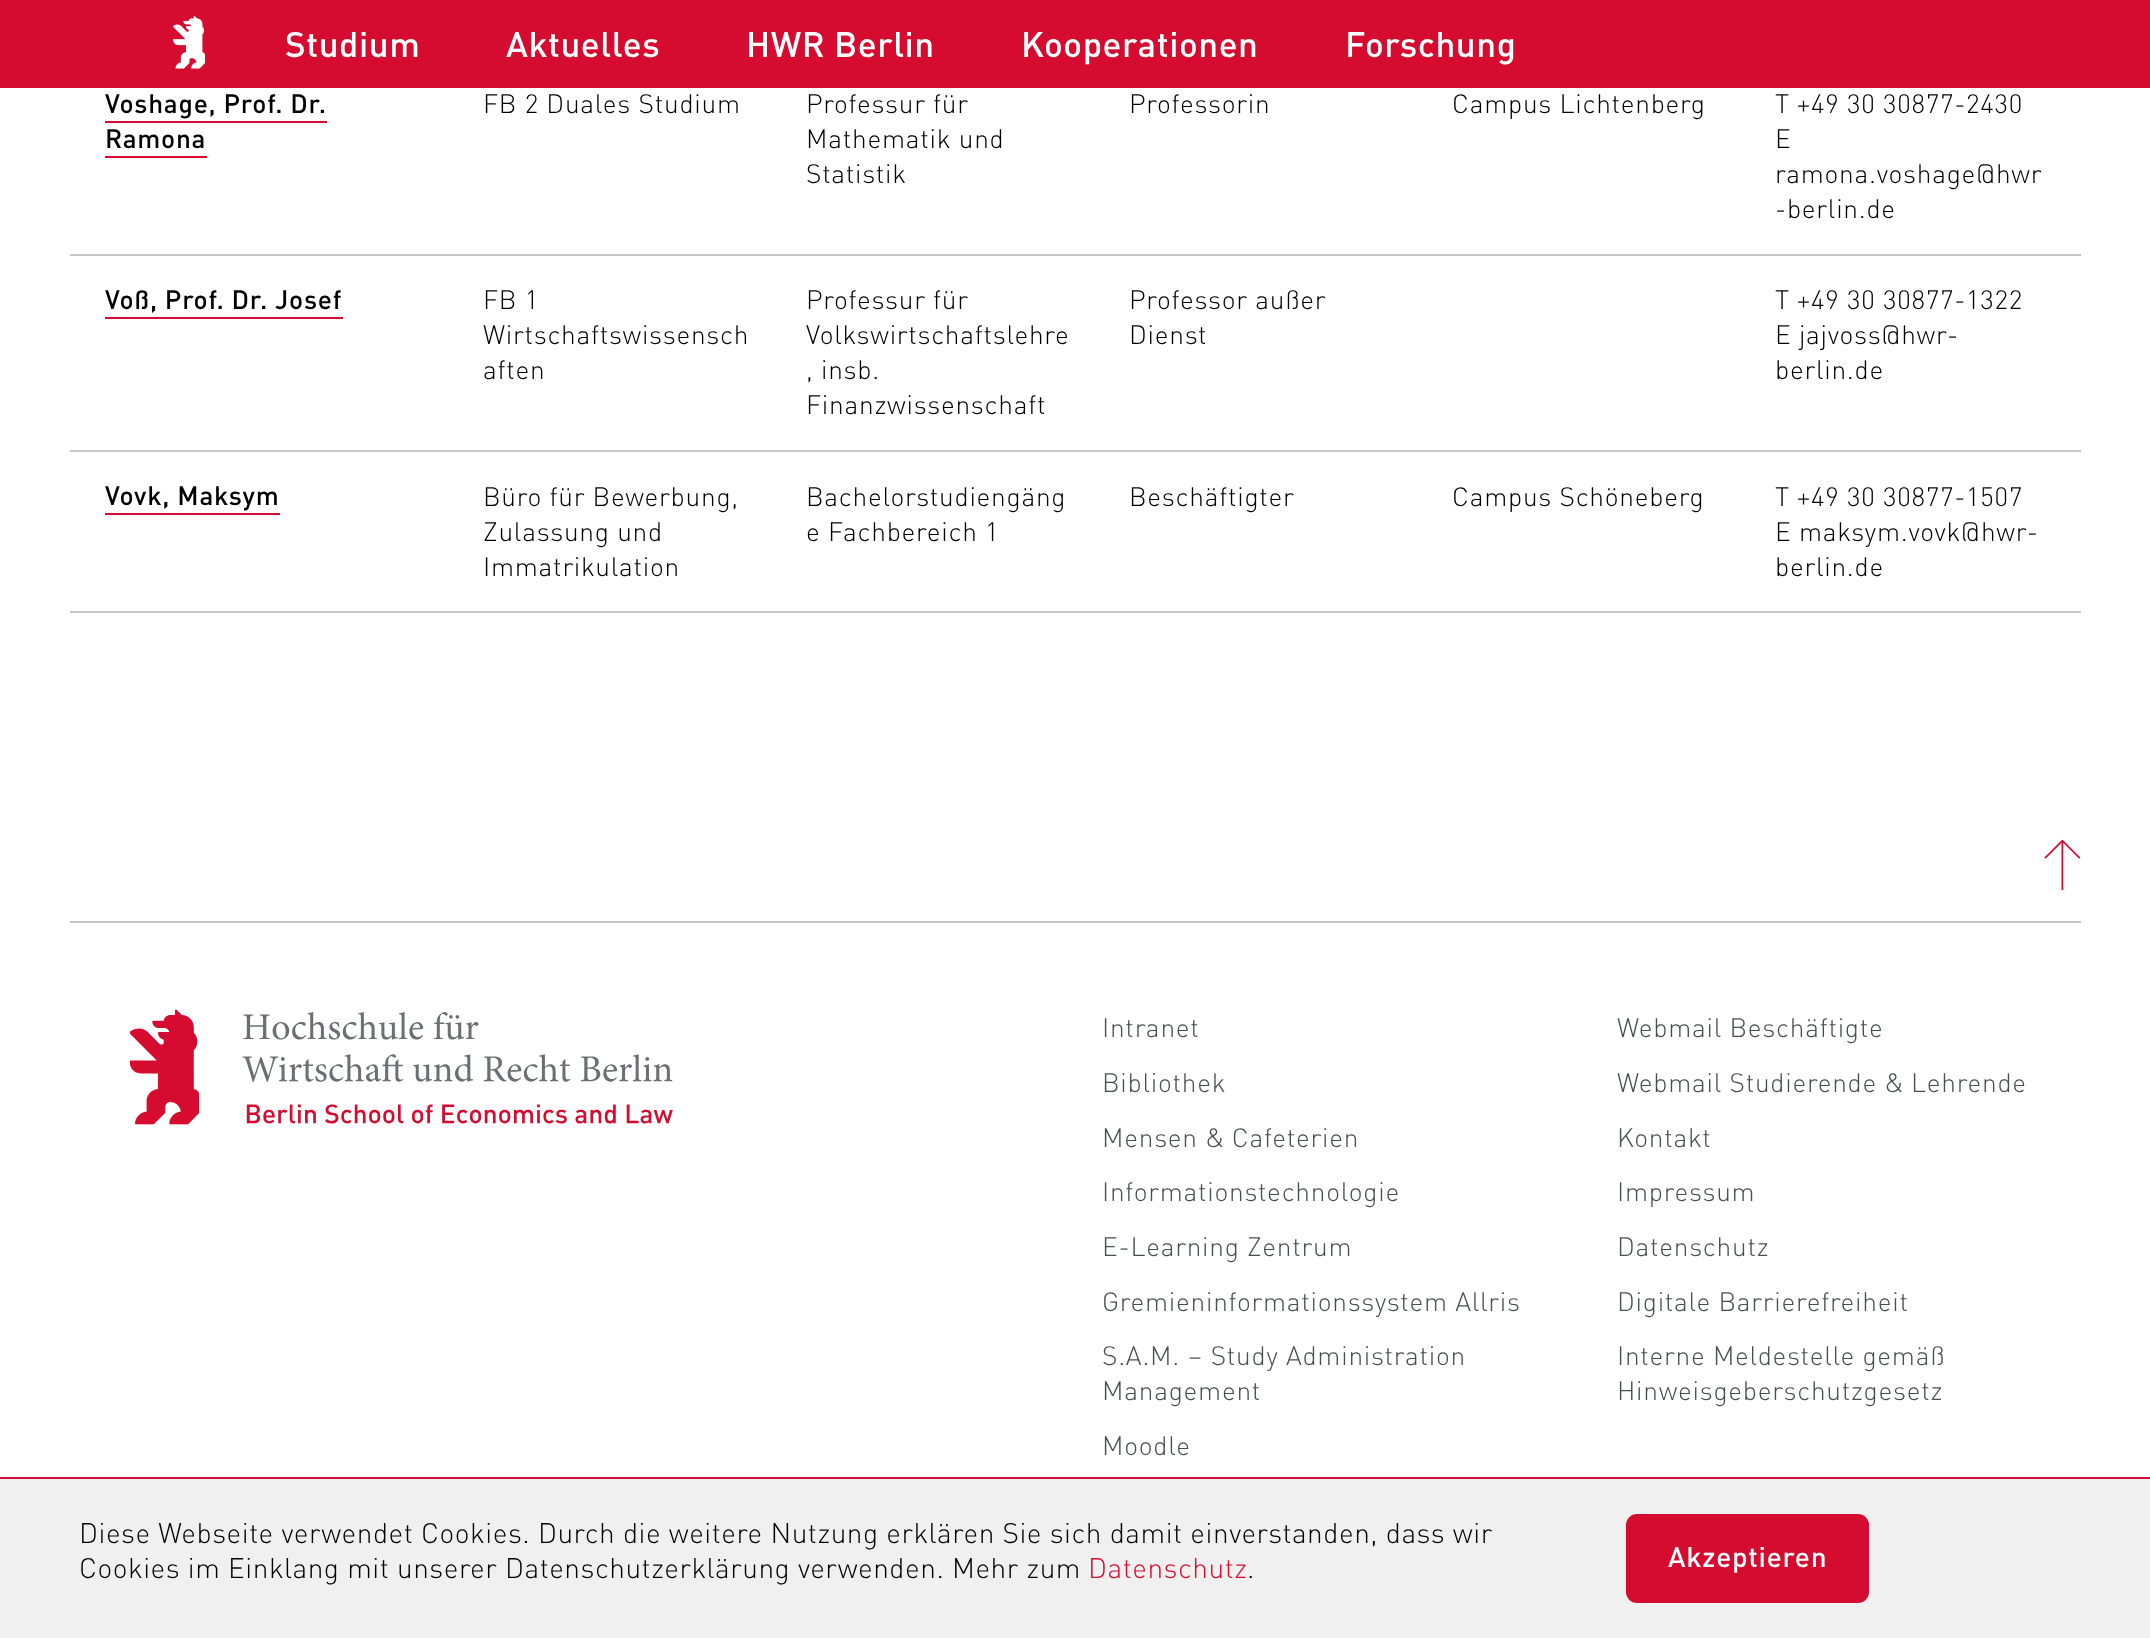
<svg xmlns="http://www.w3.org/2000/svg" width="2150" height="1638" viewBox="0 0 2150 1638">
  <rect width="100%" height="100%" fill="#fff"/>
  <path d="M0 0h2150v88H0z" fill="#d50c2f"/>
  <image x="173" y="16" width="32" height="53" href="img/1.png"/>
  <path d="M70 254h2011v2H70z" fill="#c4c5c7"/>
  <path d="M105 121h222v2H105z" fill="#d50c2f"/>
  <path d="M105 156h102v2H105z" fill="#d50c2f"/>
  <path d="M70 450h2011v2H70z" fill="#c4c5c7"/>
  <path d="M105 317h238v2H105z" fill="#d50c2f"/>
  <path d="M70 611h2011v2H70z" fill="#c4c5c7"/>
  <path d="M105 513h175v2H105z" fill="#d50c2f"/>
  <path d="M0 1479h2150v159H0z" fill="#f0f0f1"/>
  <path d="M0 1477h2150v2H0z" fill="#d50c2f"/>
  <rect x="1626" y="1514" width="243" height="89" rx="11" fill="#d50c2f"/>
  <path d="M70 921h2011v2H70z" fill="#c4c5c7"/>
  <image x="2044" y="839" width="37" height="52" href="img/2.png"/>
  <image x="129" y="1009" width="71" height="116" href="img/3.png"/>
  <image x="242" y="1012" width="431" height="112" href="img/4.png"/>
  <g font-family="DIN" font-size="35" font-weight="500" letter-spacing="0.53" fill="#fff">
    <text x="285" y="57">Studium</text>
    <text x="506" y="57">Aktuelles</text>
    <text x="746" y="57">HWR Berlin</text>
    <text x="1021" y="57">Kooperationen</text>
    <text x="1345" y="57">Forschung</text>
  </g>
  <g font-family="DIN" font-size="26.25" font-weight="500" letter-spacing="0.75" fill="#000">
    <text x="105" y="113">Voshage, Prof. Dr.</text>
    <text x="105" y="148">Ramona</text>
  </g>
  <g font-family="DIN" font-size="26.25" font-weight="300" letter-spacing="0.75" fill="#000">
    <text x="483" y="113">FB 2 Duales Studium</text>
    <text x="806" y="113">Professur für</text>
    <text x="806" y="148">Mathematik und</text>
    <text x="806" y="183">Statistik</text>
    <text x="1129" y="113">Professorin</text>
    <text x="1452" y="113">Campus Lichtenberg</text>
    <text x="1775" y="113">T +49 30 30877-2430</text>
    <text x="1775" y="148">E</text>
    <text x="1775" y="183">ramona.voshage@hwr</text>
    <text x="1775" y="218">-berlin.de</text>
  </g>
  <text x="105" y="309" font-family="DIN" font-size="26.25" font-weight="500" letter-spacing="0.75" fill="#000">Voß, Prof. Dr. Josef</text>
  <g font-family="DIN" font-size="26.25" font-weight="300" letter-spacing="0.75" fill="#000">
    <text x="483" y="309">FB 1</text>
    <text x="483" y="344">Wirtschaftswissensch</text>
    <text x="483" y="379">aften</text>
    <text x="806" y="309">Professur für</text>
    <text x="806" y="344">Volkswirtschaftslehre</text>
    <text x="806" y="379">, insb.</text>
    <text x="806" y="414">Finanzwissenschaft</text>
    <text x="1129" y="309">Professor außer</text>
    <text x="1129" y="344">Dienst</text>
    <text x="1775" y="309">T +49 30 30877-1322</text>
    <text x="1775" y="344">E jajvoss@hwr-</text>
    <text x="1775" y="379">berlin.de</text>
  </g>
  <text x="105" y="505" font-family="DIN" font-size="26.25" font-weight="500" letter-spacing="0.75" fill="#000">Vovk, Maksym</text>
  <g font-family="DIN" font-size="26.25" font-weight="300" letter-spacing="0.75" fill="#000">
    <text x="483" y="506">Büro für Bewerbung,</text>
    <text x="483" y="541">Zulassung und</text>
    <text x="483" y="576">Immatrikulation</text>
    <text x="806" y="506">Bachelorstudiengäng</text>
    <text x="806" y="541">e Fachbereich 1</text>
    <text x="1129" y="506">Beschäftigter</text>
    <text x="1452" y="506">Campus Schöneberg</text>
    <text x="1775" y="506">T +49 30 30877-1507</text>
    <text x="1775" y="541">E maksym.vovk@hwr-</text>
    <text x="1775" y="576">berlin.de</text>
  </g>
  <g font-family="DIN" font-size="28" font-weight="300" letter-spacing="0.53" fill="#000">
    <text x="79" y="1543">Diese Webseite verwendet Cookies. Durch die weitere Nutzung erklären Sie sich damit einverstanden, dass wir</text>
    <text x="79" y="1578">Cookies im Einklang mit unserer Datenschutzerklärung verwenden. Mehr zum</text>
  </g>
  <text x="1088" y="1578" font-family="DIN" font-size="28" font-weight="300" letter-spacing="0.53" fill="#d50c2f">Datenschutz</text>
  <text x="1247" y="1578" font-family="DIN" font-size="28" font-weight="300" letter-spacing="0.53" fill="#000">.</text>
  <text x="1668" y="1567" font-family="DIN" font-size="28" font-weight="500" letter-spacing="0.75" fill="#fff">Akzeptieren</text>
  <g font-family="DIN" font-size="26.25" font-weight="300" letter-spacing="0.75" fill="#4a4d50">
    <text x="1102" y="1037">Intranet</text>
    <text x="1617" y="1037">Webmail Beschäftigte</text>
    <text x="1102" y="1092">Bibliothek</text>
    <text x="1617" y="1092">Webmail Studierende &amp; Lehrende</text>
    <text x="1102" y="1147">Mensen &amp; Cafeterien</text>
    <text x="1617" y="1147">Kontakt</text>
    <text x="1102" y="1201">Informationstechnologie</text>
    <text x="1617" y="1201">Impressum</text>
    <text x="1102" y="1256">E-Learning Zentrum</text>
    <text x="1617" y="1256">Datenschutz</text>
    <text x="1102" y="1311">Gremieninformationssystem Allris</text>
    <text x="1617" y="1311">Digitale Barrierefreiheit</text>
    <text x="1102" y="1365">S.A.M. – Study Administration</text>
    <text x="1102" y="1400">Management</text>
    <text x="1617" y="1365">Interne Meldestelle gemäß</text>
    <text x="1617" y="1400">Hinweisgeberschutzgesetz</text>
    <text x="1102" y="1455">Moodle</text>
  </g>
</svg>
